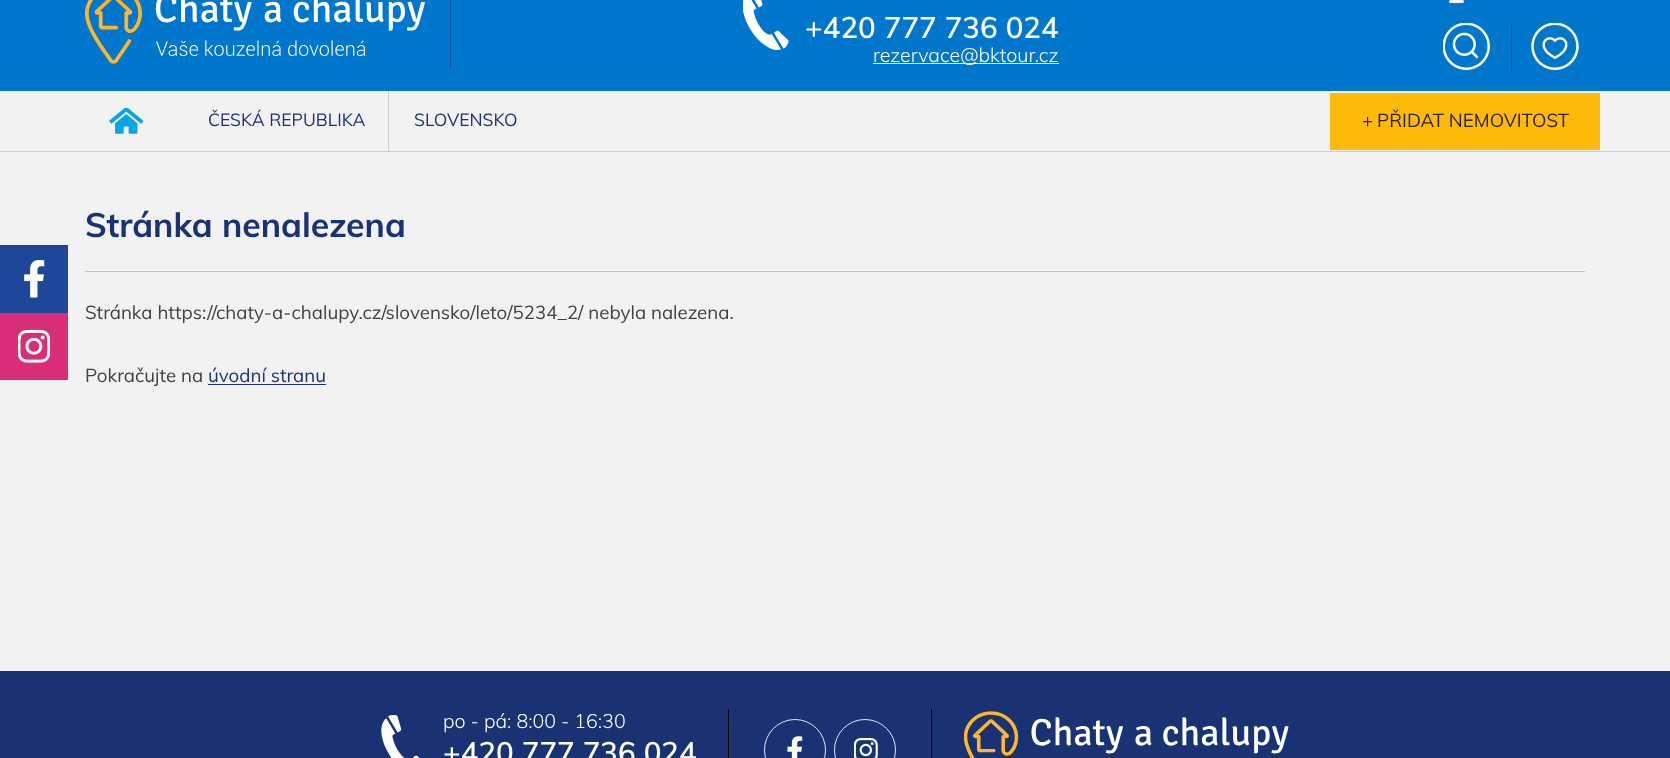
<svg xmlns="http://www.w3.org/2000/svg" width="1670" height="758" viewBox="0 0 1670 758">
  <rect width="100%" height="100%" fill="#f2f2f2"/>
  <path d="M0 0h1670v91H0z" fill="#07c"/>
  <path d="M450 0h1v69H450z" fill="#0d549f"/>
  <image x="85" y="0" width="340" height="64" href="img/1.png"/>
  <image x="743" y="0" width="46" height="50" href="img/2.png"/>
  <path d="M873 63h186v1H873z" fill="#fff"/>
  <rect x="1449" width="15" height="3" rx="1.5" fill="#fff"/>
  <path d="M1511 23h1v50H1511z" fill="#0d549f"/>
  <image x="1443" y="23" width="47" height="47" href="img/3.png"/>
  <image x="1531" y="23" width="48" height="47" href="img/4.png"/>
  <path d="M0 151h1670v1H0z" fill="#cdcdcd"/>
  <image x="109" y="108" width="35" height="26" href="img/5.png"/>
  <path d="M388 91h1v60H388z" fill="#cdcdcd"/>
  <path d="M1330 93h270v57H1330z" fill="#ffb90a"/>
  <path d="M0 245h68v68H0z" fill="#1e479a"/>
  <image x="24" y="260" width="21" height="38" href="img/6.png"/>
  <path d="M0 313h68v67H0z" fill="#d92d77"/>
  <image x="18" y="329" width="32" height="34" href="img/7.png"/>
  <path d="M85 271h1500v1H85z" fill="#c4c4c4"/>
  <path d="M208 384h118v1H208z" fill="#193273"/>
  <path d="M0 671h1670v87H0z" fill="#193273"/>
  <image x="381" y="715" width="39" height="43" href="img/8.png"/>
  <path d="M931 709h1v49H931z" fill="#000"/>
  <path d="M728 709h1v49H728z" fill="#000"/>
  <circle cx="795" cy="750" r="30.5" fill="none" stroke="#e1e6f3"/>
  <image x="787" y="736" width="16" height="22" href="img/9.png"/>
  <circle cx="865" cy="750" r="30.5" fill="none" stroke="#e1e6f3"/>
  <image x="854" y="737" width="24" height="21" href="img/10.png"/>
  <image x="964" y="711" width="325" height="47" href="img/11.png"/>
  <text x="805" y="38" font-family="Muli" font-size="29.5" font-weight="600" fill="#fff">+420 777 736 024</text>
  <text x="873" y="62" font-family="Muli" font-size="19.6" font-weight="300" fill="#fff">rezervace@bktour.cz</text>
  <g font-family="Muli" font-size="17.5" fill="#193273">
    <text x="208" y="126">ČESKÁ REPUBLIKA</text>
    <text x="414" y="126">SLOVENSKO</text>
  </g>
  <g font-family="Muli" font-size="18.7" fill="#292418">
    <text x="1362" y="127">+</text>
    <text x="1377" y="127">PŘIDAT NEMOVITOST</text>
  </g>
  <text x="85" y="237" font-family="Muli" font-size="33.75" font-weight="bold" fill="#193273">Stránka nenalezena</text>
  <g font-family="Muli" font-size="18.7" fill="#414141">
    <text x="85" y="319">Stránka https://chaty-a-chalupy.cz/slovensko/leto/5234_2/ nebyla nalezena.</text>
    <text x="85" y="382">Pokračujte na</text>
  </g>
  <text x="208" y="382" font-family="Muli" font-size="18.7" fill="#193273">úvodní stranu</text>
  <text x="443" y="728" font-family="Muli" font-size="19.6" font-weight="300" fill="#fff">po - pá: 8:00 - 16:30</text>
  <text x="443" y="763" font-family="Muli" font-size="29.5" font-weight="600" fill="#fff">+420 777 736 024</text>
</svg>
